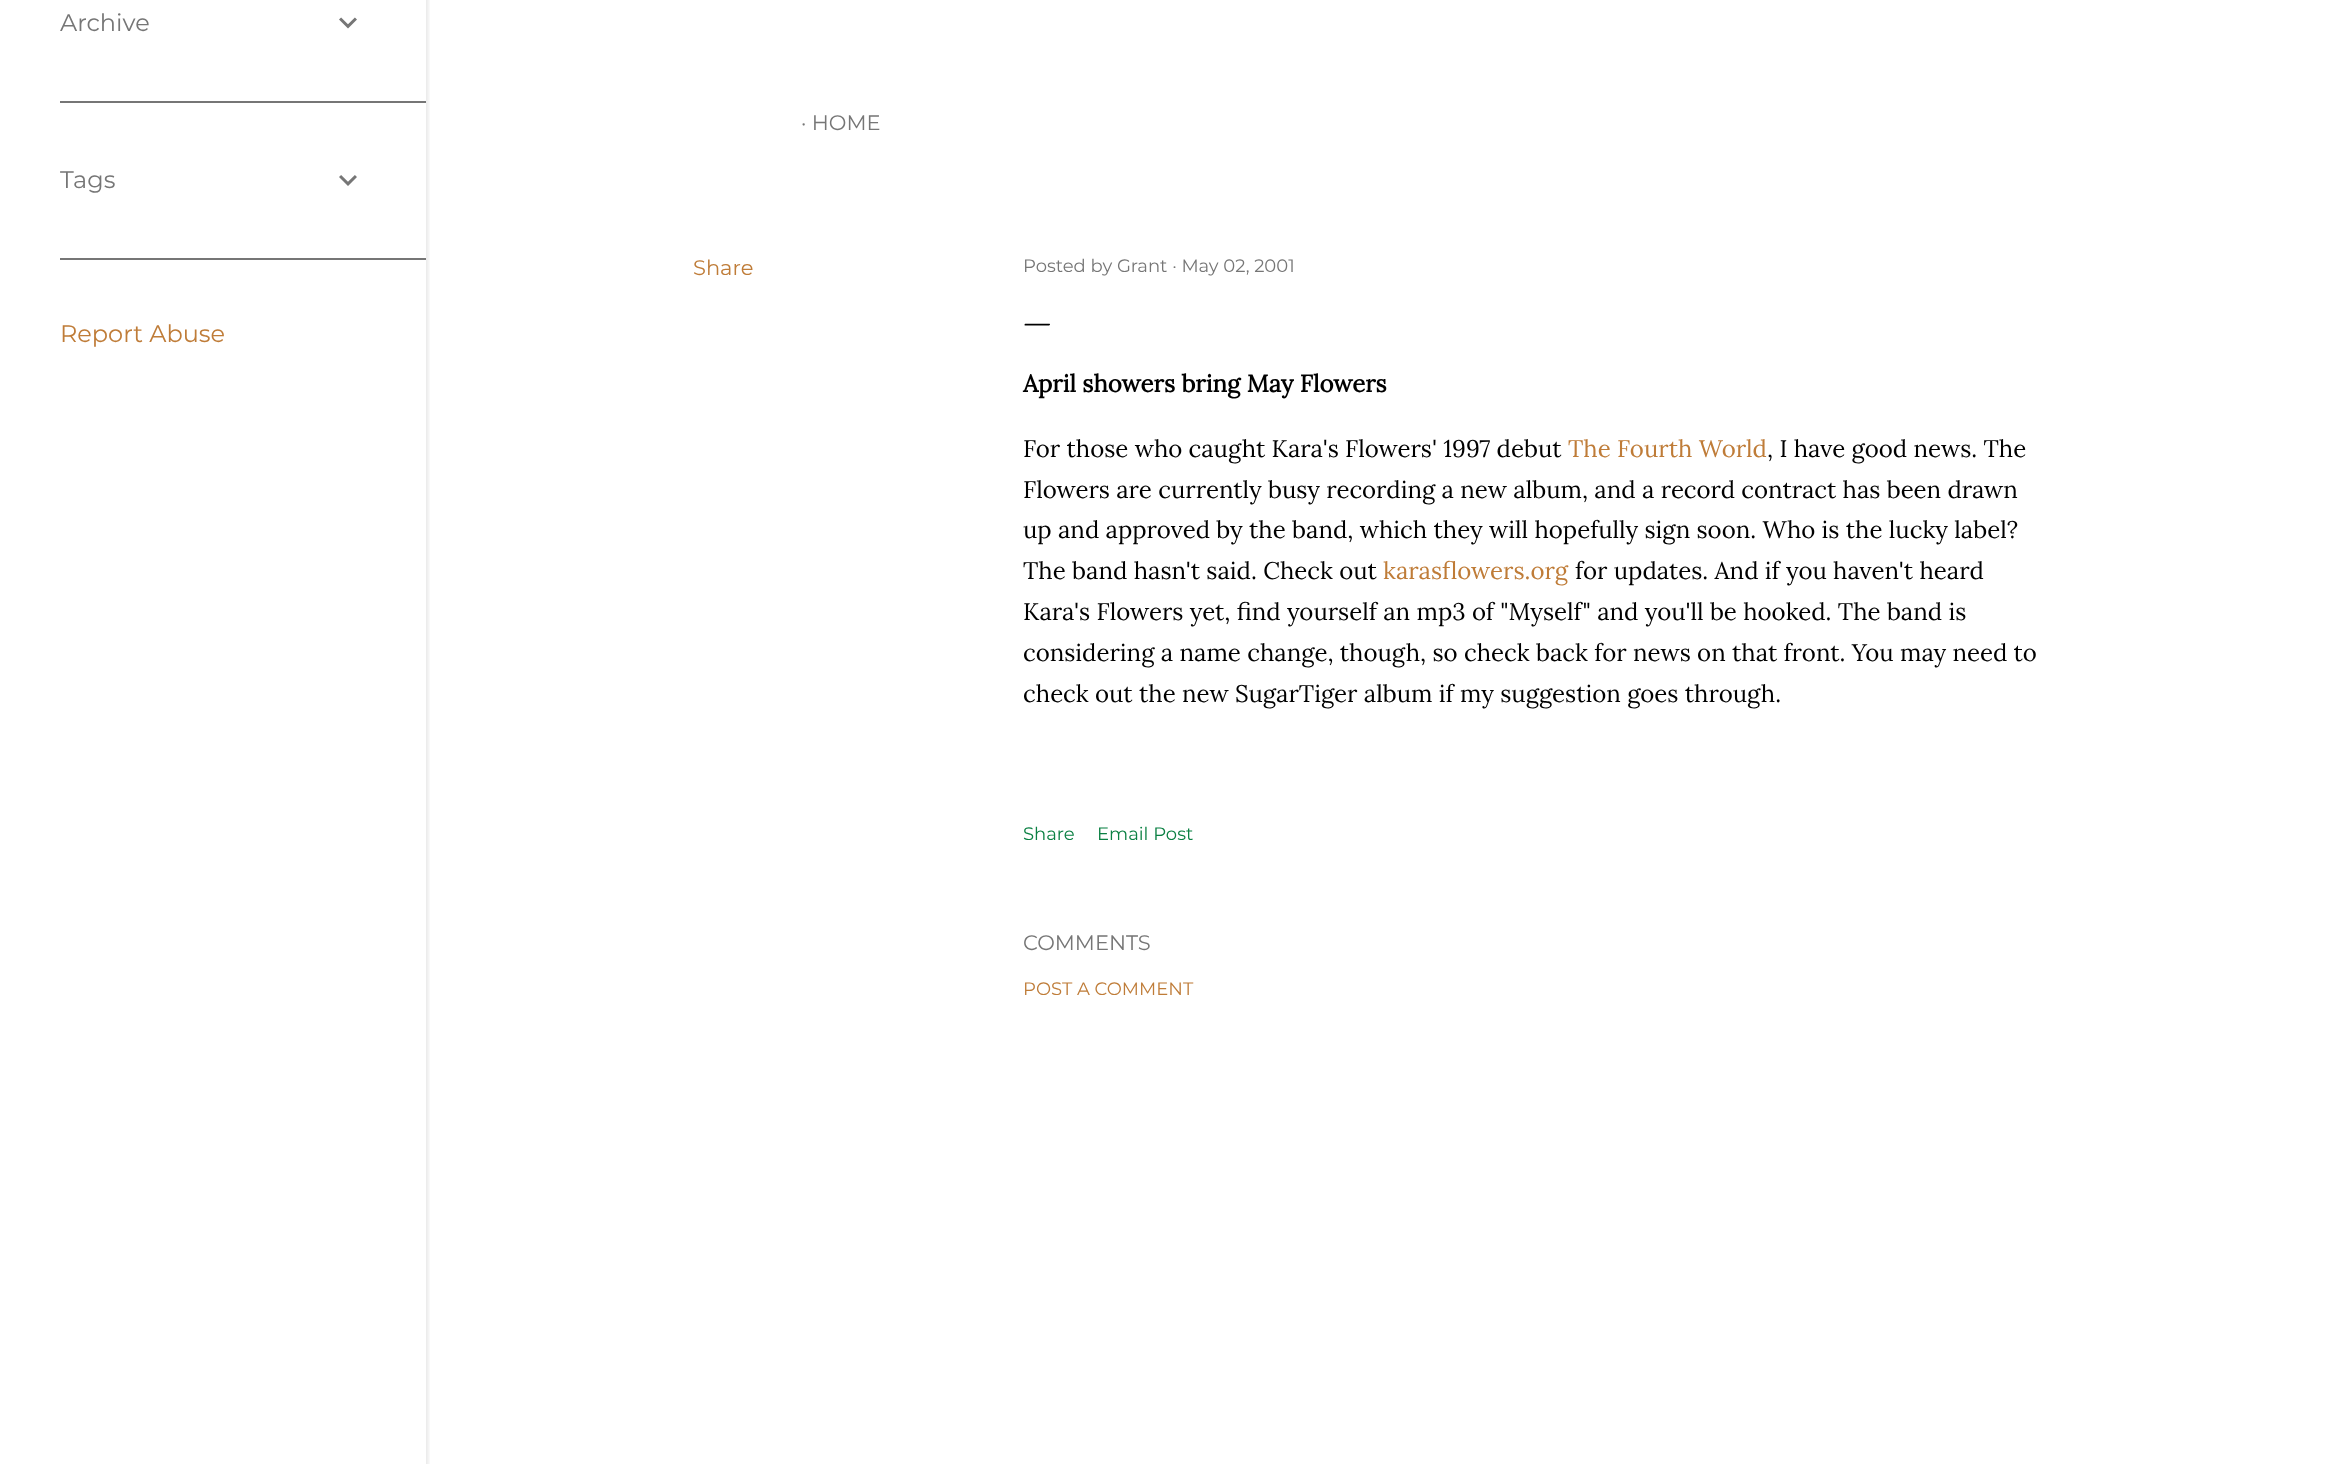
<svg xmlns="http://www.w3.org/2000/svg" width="2343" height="1464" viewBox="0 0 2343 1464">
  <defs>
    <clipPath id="clip1"><path d="M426 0h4v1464H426z"/></clipPath>
  </defs>
  <rect width="100%" height="100%" fill="#fff"/>
  <g clip-path="url(#clip1)">
    <path d="M2 -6h426v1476H2z" fill="#0000001a" filter="blur(2px)"/>
  </g>
  <image x="339" y="17" width="18" height="12" href="img/1.png"/>
  <path d="M60 101h366v2H60z" fill="#767676"/>
  <image x="339" y="175" width="18" height="11" href="img/2.png"/>
  <path d="M60 258h366v2H60z" fill="#767676"/>
  <g font-family="Montserrat" font-size="24" fill="#767676">
    <text x="60" y="31">Archive</text>
    <text x="60" y="188">Tags</text>
  </g>
  <text x="60" y="342" font-family="Montserrat" font-size="24" fill="#bf7c38">Report Abuse</text>
  <text x="801" y="130" font-family="Montserrat" font-size="21" fill="#767676">· HOME</text>
  <text x="693" y="275" font-family="Montserrat" font-size="21" fill="#bf7c38">Share</text>
  <text x="1023" y="272" font-family="Montserrat" font-size="18" fill="#767676">Posted by Grant · May 02, 2001</text>
  <text x="1023" y="331" font-family="EB Garamond" font-size="30" fill="#000">—</text>
  <text x="1023" y="392" font-family="Lora" font-size="24" font-weight="bold" fill="#000">April showers bring May Flowers</text>
  <text x="1023" y="457" font-family="Lora" font-size="24" fill="#000">For those who caught Kara's Flowers' 1997 debut</text>
  <text x="1568" y="457" font-family="Lora" font-size="24" fill="#bf7c38">The Fourth World</text>
  <g font-family="Lora" font-size="24" fill="#000">
    <text x="1767" y="457">, I have good news. The</text>
    <text x="1023" y="498">Flowers are currently busy recording a new album, and a record contract has been drawn</text>
    <text x="1023" y="538">up and approved by the band, which they will hopefully sign soon. Who is the lucky label?</text>
    <text x="1023" y="579">The band hasn't said. Check out</text>
  </g>
  <text x="1383" y="579" font-family="Lora" font-size="24" fill="#bf7c38">karasflowers.org</text>
  <g font-family="Lora" font-size="24" fill="#000">
    <text x="1575" y="579">for updates. And if you haven't heard</text>
    <text x="1023" y="620">Kara's Flowers yet, find yourself an mp3 of "Myself" and you'll be hooked. The band is</text>
    <text x="1023" y="661">considering a name change, though, so check back for news on that front. You may need to</text>
    <text x="1023" y="702">check out the new SugarTiger album if my suggestion goes through.</text>
  </g>
  <g font-family="Montserrat" font-size="18" fill="#0b8043">
    <text x="1023" y="840">Share</text>
    <text x="1097" y="840">Email Post</text>
  </g>
  <text x="1023" y="950" font-family="Montserrat" font-size="21" fill="#767676">COMMENTS</text>
  <text x="1023" y="995" font-family="Montserrat" font-size="18" fill="#bf7c38">POST A COMMENT</text>
</svg>
